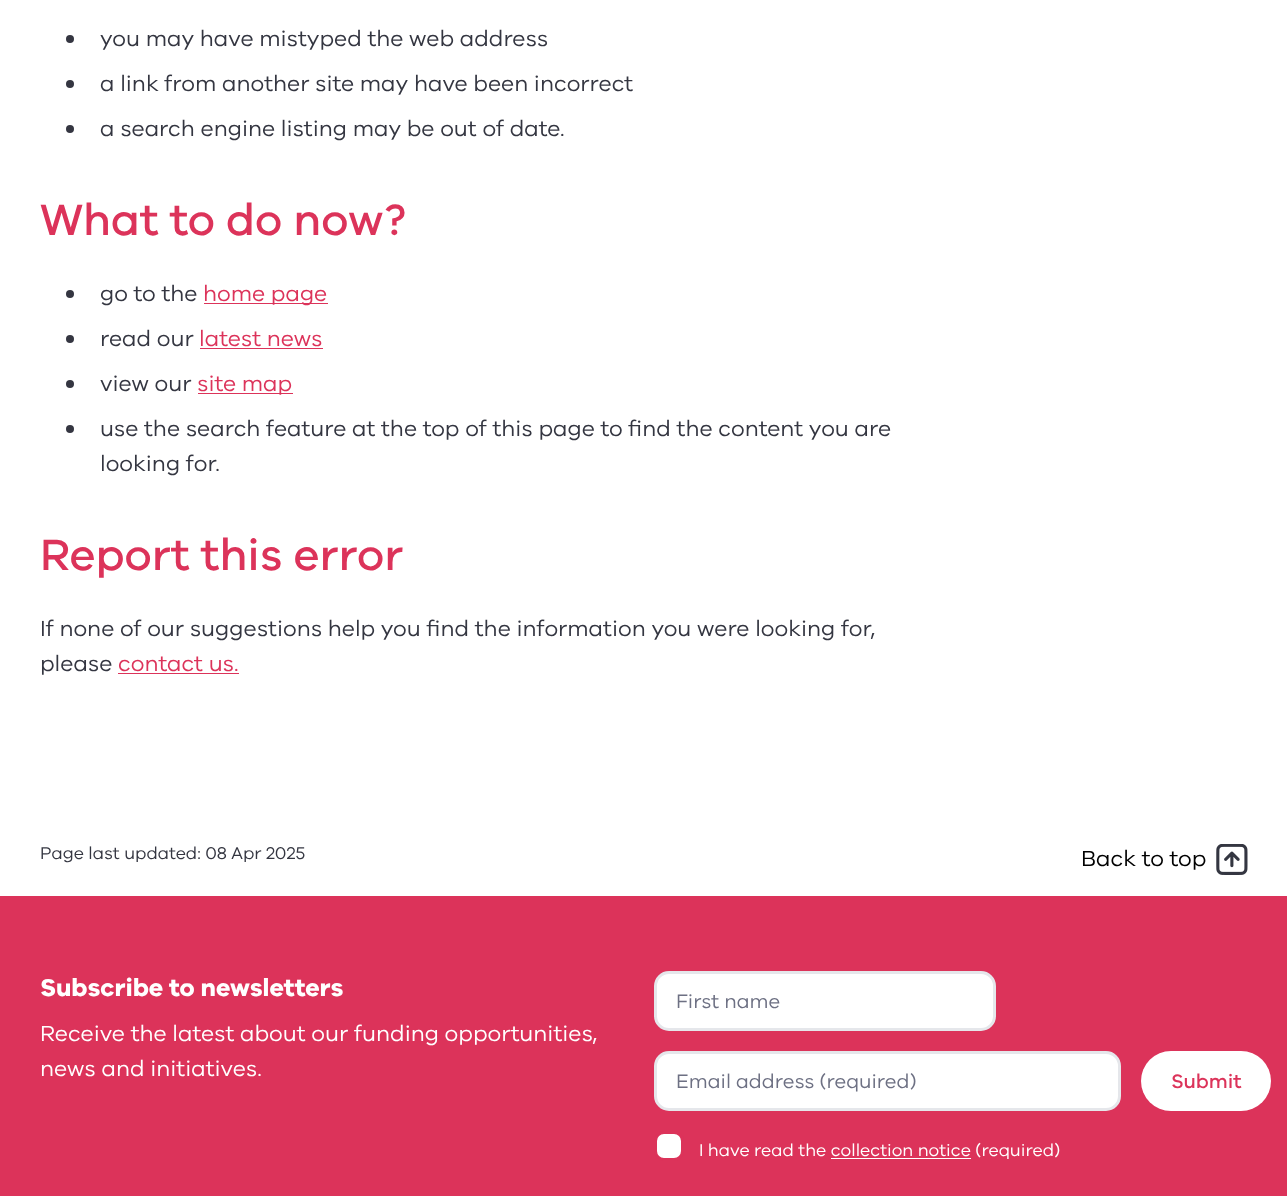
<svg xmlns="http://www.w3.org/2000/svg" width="1287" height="1196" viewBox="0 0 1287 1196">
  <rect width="100%" height="100%" fill="#fff"/>
  <circle cx="70" cy="39" r="4" fill="#343641"/>
  <circle cx="70" cy="84" r="4" fill="#343641"/>
  <circle cx="70" cy="129" r="4" fill="#343641"/>
  <circle cx="70" cy="294" r="4" fill="#343641"/>
  <path d="M204 303h124v1H204z" fill="#dc335a"/>
  <circle cx="70" cy="339" r="4" fill="#343641"/>
  <path d="M200 348h123v1H200z" fill="#dc335a"/>
  <circle cx="70" cy="384" r="4" fill="#343641"/>
  <path d="M198 393h95v1H198z" fill="#dc335a"/>
  <circle cx="70" cy="429" r="4" fill="#343641"/>
  <path d="M118 673h121v1H118z" fill="#dc335a"/>
  <image x="1216" y="844" width="32" height="31" href="img/1.png"/>
  <path d="M0 896h1287v300H0z" fill="#dc335a"/>
  <rect x="655.5" y="972.5" width="339" height="57" rx="13.5" fill="#fff" stroke="#e5e7eb" stroke-width="3"/>
  <rect x="655.5" y="1052.5" width="464" height="57" rx="13.5" fill="#fff" stroke="#e5e7eb" stroke-width="3"/>
  <rect x="1141" y="1051" width="130" height="60" rx="30" fill="#fff"/>
  <rect x="655.5" y="1132.5" width="27" height="27" rx="8.5" fill="#fff" stroke="#dc335a" stroke-width="3"/>
  <path d="M831 1158h140v1H831z" fill="#fff"/>
  <g font-family="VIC" font-size="22.5" fill="#343641">
    <text x="100" y="46">you may have mistyped the web address</text>
    <text x="100" y="91">a link from another site may have been incorrect</text>
    <text x="100" y="136">a search engine listing may be out of date.</text>
  </g>
  <text x="40" y="235" font-family="VIC" font-size="45" font-weight="500" fill="#dc335a">What to do now?</text>
  <text x="100" y="301" font-family="VIC" font-size="22.5" fill="#343641">go to the</text>
  <text x="203" y="301" font-family="VIC" font-size="22.5" fill="#dc335a">home page</text>
  <text x="100" y="346" font-family="VIC" font-size="22.5" fill="#343641">read our</text>
  <text x="199" y="346" font-family="VIC" font-size="22.5" fill="#dc335a">latest news</text>
  <text x="100" y="391" font-family="VIC" font-size="22.5" fill="#343641">view our</text>
  <text x="197" y="391" font-family="VIC" font-size="22.5" fill="#dc335a">site map</text>
  <g font-family="VIC" font-size="22.5" fill="#343641">
    <text x="100" y="436">use the search feature at the top of this page to find the content you are</text>
    <text x="100" y="471">looking for.</text>
  </g>
  <text x="40" y="570" font-family="VIC" font-size="45" font-weight="500" fill="#dc335a">Report this error</text>
  <g font-family="VIC" font-size="22.5" fill="#343641">
    <text x="40" y="636">If none of our suggestions help you find the information you were looking for,</text>
    <text x="40" y="671">please</text>
  </g>
  <text x="118" y="671" font-family="VIC" font-size="22.5" fill="#dc335a">contact us.</text>
  <text x="40" y="859" font-family="VIC" font-size="17.5" fill="#343641">Page last updated: 08 Apr 2025</text>
  <text x="1081" y="866" font-family="VIC" font-size="22.5" fill="#000">Back to top</text>
  <text x="40" y="996" font-family="VIC" font-size="25" font-weight="bold" fill="#fff">Subscribe to newsletters</text>
  <g font-family="VIC" font-size="22.5" fill="#fff">
    <text x="40" y="1041">Receive the latest about our funding opportunities,</text>
    <text x="40" y="1076">news and initiatives.</text>
  </g>
  <g font-family="VIC" font-size="20" fill="#6d7083">
    <text x="676" y="1008">First name</text>
    <text x="676" y="1088">Email address (required)</text>
  </g>
  <text x="1171" y="1088" font-family="VIC" font-size="20" font-weight="500" fill="#dc335a">Submit</text>
  <text x="699" y="1156" font-family="VIC" font-size="17.5" fill="#fff">I have read the collection notice (required)</text>
</svg>
